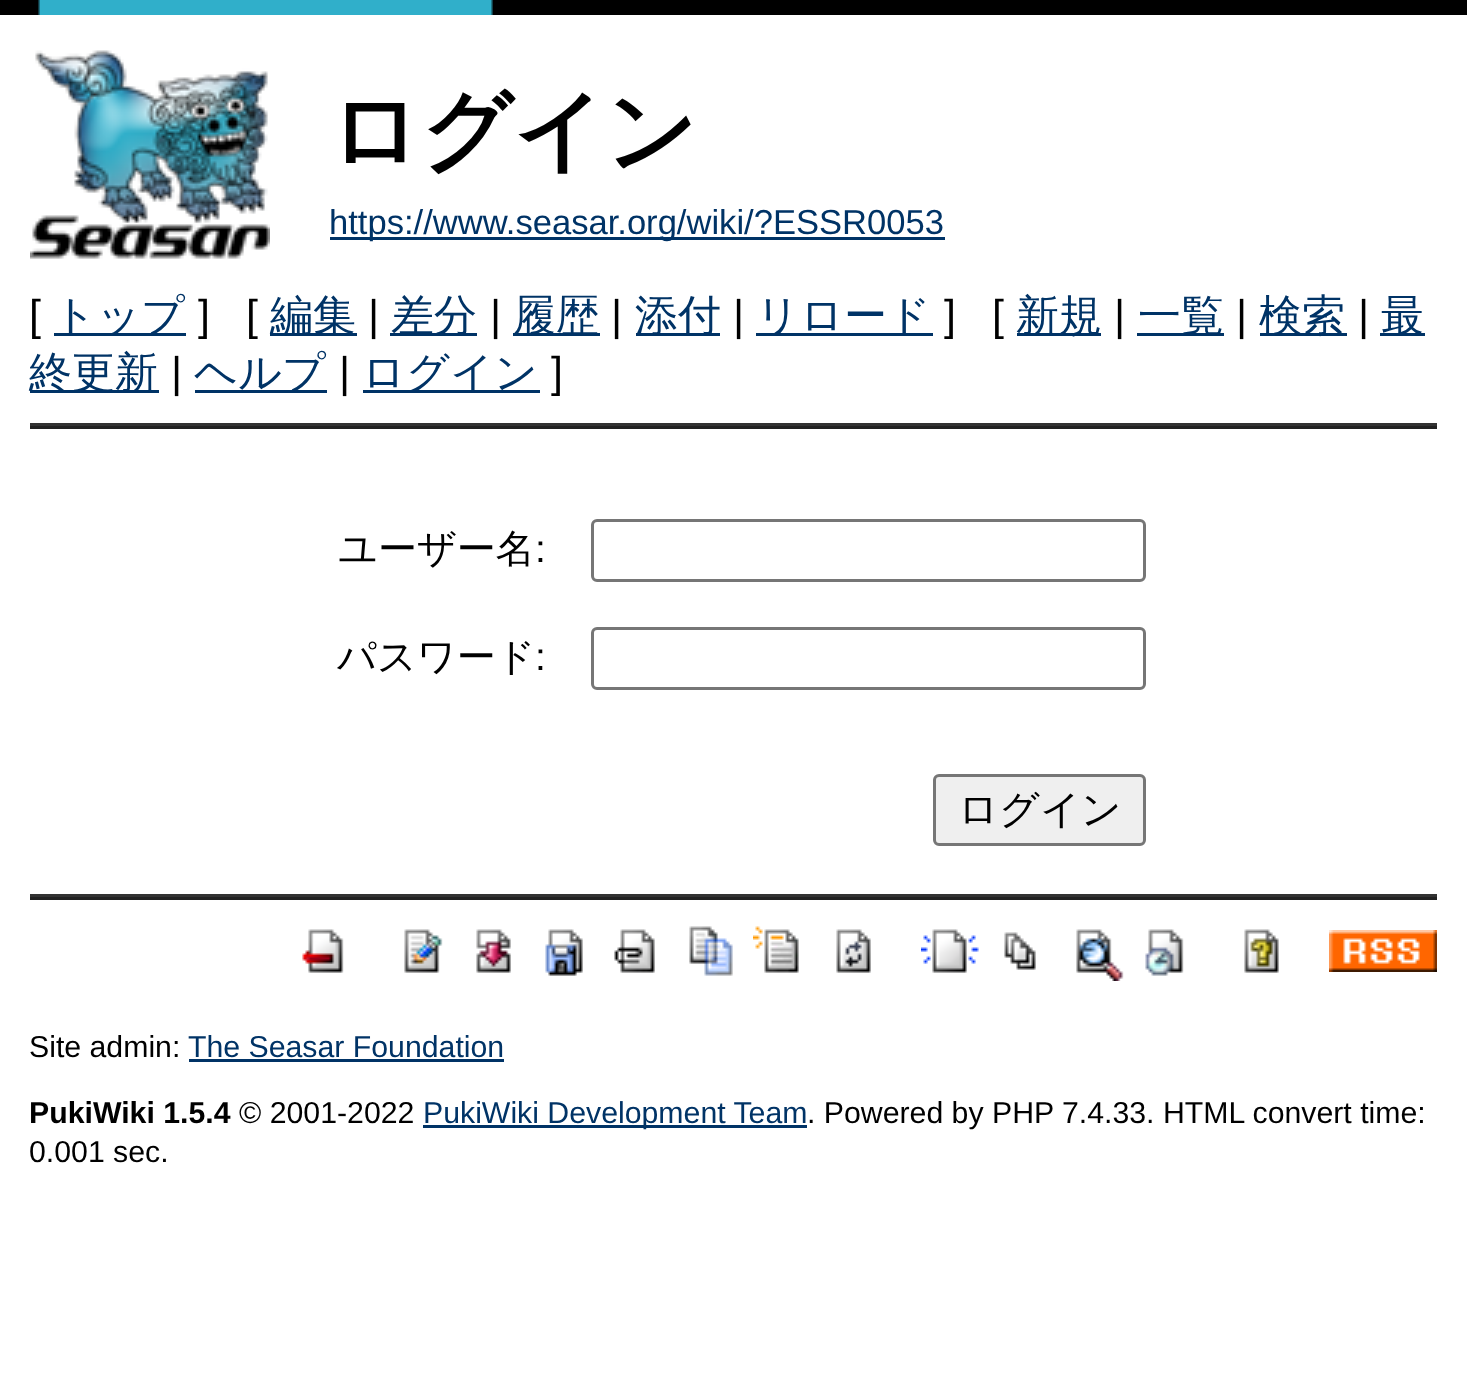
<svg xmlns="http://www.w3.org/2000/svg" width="1467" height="1380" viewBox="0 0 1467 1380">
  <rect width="100%" height="100%" fill="#fff"/>
  <image x="0" y="0" width="1467" height="15" href="img/1.png"/>
  <image x="30" y="50" width="240" height="209" href="img/2.png"/>
  <path d="M330 237h615v3H330z" fill="#036"/>
  <path d="M54 333h132v3H54z" fill="#036"/>
  <path d="M270 333h87v3H270z" fill="#036"/>
  <path d="M390 333h87v3H390z" fill="#036"/>
  <path d="M513 333h87v3H513z" fill="#036"/>
  <path d="M636 333h84v3H636z" fill="#036"/>
  <path d="M756 333h177v3H756z" fill="#036"/>
  <path d="M1017 333h84v3H1017z" fill="#036"/>
  <path d="M1137 333h87v3H1137z" fill="#036"/>
  <path d="M1260 333h87v3H1260z" fill="#036"/>
  <path d="M1380 333h45v3H1380z" fill="#036"/>
  <path d="M30 390h129v3H30z" fill="#036"/>
  <path d="M195 390h132v3H195z" fill="#036"/>
  <path d="M363 390h177v3H363z" fill="#036"/>
  <path d="M30 423h1407v3H30z" fill="#333"/>
  <path d="M30 426h1407v3H30z" fill="#222"/>
  <rect x="592.5" y="520.5" width="552" height="60" rx="4.5" fill="none" stroke="#767676" stroke-width="3"/>
  <rect x="592.5" y="628.5" width="552" height="60" rx="4.5" fill="none" stroke="#767676" stroke-width="3"/>
  <rect x="934.5" y="775.5" width="210" height="69" rx="4.5" fill="#efefef" stroke="#767676" stroke-width="3"/>
  <path d="M30 894h1407v3H30z" fill="#333"/>
  <path d="M30 897h1407v3H30z" fill="#222"/>
  <image x="302" y="929" width="42" height="44" href="img/3.png"/>
  <image x="404" y="929" width="39" height="44" href="img/4.png"/>
  <image x="476" y="929" width="35" height="44" href="img/5.png"/>
  <image x="545" y="929" width="38" height="47" href="img/6.png"/>
  <image x="614" y="929" width="41" height="44" href="img/7.png"/>
  <image x="689" y="926" width="44" height="50" href="img/8.png"/>
  <image x="753" y="926" width="46" height="47" href="img/9.png"/>
  <image x="836" y="929" width="35" height="44" href="img/10.png"/>
  <image x="921" y="929" width="58" height="44" href="img/11.png"/>
  <image x="1004" y="932" width="32" height="38" href="img/12.png"/>
  <image x="1076" y="929" width="48" height="52" href="img/13.png"/>
  <image x="1145" y="929" width="39" height="47" href="img/14.png"/>
  <image x="1244" y="929" width="35" height="44" href="img/15.png"/>
  <image x="1329" y="930" width="108" height="42" href="img/16.png"/>
  <path d="M189 1059h315v3H189z" fill="#036"/>
  <path d="M423 1125h384v3H423z" fill="#036"/>
  <text x="329" y="162" font-family="WenQuanYi Zen Hei" font-size="90" font-weight="bold" fill="#000">ログイン</text>
  <text x="329" y="234" font-family="Liberation Sans" font-size="34.6" fill="#036">https://www.seasar.org/wiki/?ESSR0053</text>
  <text x="29" y="330" font-family="Liberation Sans" font-size="43" fill="#000">[</text>
  <text x="53" y="330" font-family="WenQuanYi Zen Hei" font-size="43" font-weight="500" fill="#036">トップ</text>
  <g font-family="Liberation Sans" font-size="43" fill="#000">
    <text x="198" y="330">]</text>
    <text x="246" y="330">[</text>
  </g>
  <text x="270" y="330" font-family="WenQuanYi Zen Hei" font-size="43" font-weight="500" fill="#036">編集</text>
  <text x="368" y="330" font-family="Liberation Sans" font-size="43" fill="#000">|</text>
  <text x="391" y="330" font-family="WenQuanYi Zen Hei" font-size="43" font-weight="500" fill="#036">差分</text>
  <text x="490" y="330" font-family="Liberation Sans" font-size="43" fill="#000">|</text>
  <text x="513" y="330" font-family="WenQuanYi Zen Hei" font-size="43" font-weight="500" fill="#036">履歴</text>
  <text x="611" y="330" font-family="Liberation Sans" font-size="43" fill="#000">|</text>
  <text x="635" y="330" font-family="WenQuanYi Zen Hei" font-size="43" font-weight="500" fill="#036">添付</text>
  <text x="733" y="330" font-family="Liberation Sans" font-size="43" fill="#000">|</text>
  <text x="756" y="330" font-family="WenQuanYi Zen Hei" font-size="43" font-weight="500" fill="#036">リロード</text>
  <g font-family="Liberation Sans" font-size="43" fill="#000">
    <text x="944" y="330">]</text>
    <text x="992" y="330">[</text>
  </g>
  <text x="1016" y="330" font-family="WenQuanYi Zen Hei" font-size="43" font-weight="500" fill="#036">新規</text>
  <text x="1114" y="330" font-family="Liberation Sans" font-size="43" fill="#000">|</text>
  <text x="1138" y="330" font-family="WenQuanYi Zen Hei" font-size="43" font-weight="500" fill="#036">一覧</text>
  <text x="1236" y="330" font-family="Liberation Sans" font-size="43" fill="#000">|</text>
  <text x="1259" y="330" font-family="WenQuanYi Zen Hei" font-size="43" font-weight="500" fill="#036">検索</text>
  <text x="1358" y="330" font-family="Liberation Sans" font-size="43" fill="#000">|</text>
  <g font-family="WenQuanYi Zen Hei" font-size="43" font-weight="500" fill="#036">
    <text x="1381" y="330">最</text>
    <text x="29" y="387">終更新</text>
  </g>
  <text x="171" y="387" font-family="Liberation Sans" font-size="43" fill="#000">|</text>
  <text x="194" y="387" font-family="WenQuanYi Zen Hei" font-size="43" font-weight="500" fill="#036">ヘルプ</text>
  <text x="339" y="387" font-family="Liberation Sans" font-size="43" fill="#000">|</text>
  <text x="362" y="387" font-family="WenQuanYi Zen Hei" font-size="43" font-weight="500" fill="#036">ログイン</text>
  <text x="551" y="387" font-family="Liberation Sans" font-size="43" fill="#000">]</text>
  <text x="338" y="562" font-family="WenQuanYi Zen Hei" font-size="39" font-weight="500" fill="#000">ユーザー名</text>
  <text x="535" y="562" font-family="Liberation Sans" font-size="39" fill="#000">:</text>
  <text x="337" y="670" font-family="WenQuanYi Zen Hei" font-size="39" font-weight="500" fill="#000">パスワード</text>
  <text x="535" y="670" font-family="Liberation Sans" font-size="39" fill="#000">:</text>
  <text x="958" y="823" font-family="WenQuanYi Zen Hei" font-size="40" font-weight="500" fill="#000">ログイン</text>
  <text x="29" y="1057" font-family="Liberation Sans" font-size="30.25" fill="#000">Site admin:</text>
  <text x="188" y="1057" font-family="Liberation Sans" font-size="30.25" fill="#036">The Seasar Foundation</text>
  <text x="29" y="1123" font-family="Liberation Sans" font-size="30.25" font-weight="bold" fill="#000">PukiWiki 1.5.4</text>
  <text x="239" y="1123" font-family="Liberation Sans" font-size="30.25" fill="#000">© 2001-2022</text>
  <text x="423" y="1123" font-family="Liberation Sans" font-size="30.25" fill="#036">PukiWiki Development Team</text>
  <g font-family="Liberation Sans" font-size="30.25" fill="#000">
    <text x="807" y="1123">. Powered by PHP 7.4.33. HTML convert time:</text>
    <text x="29" y="1162">0.001 sec.</text>
  </g>
</svg>
